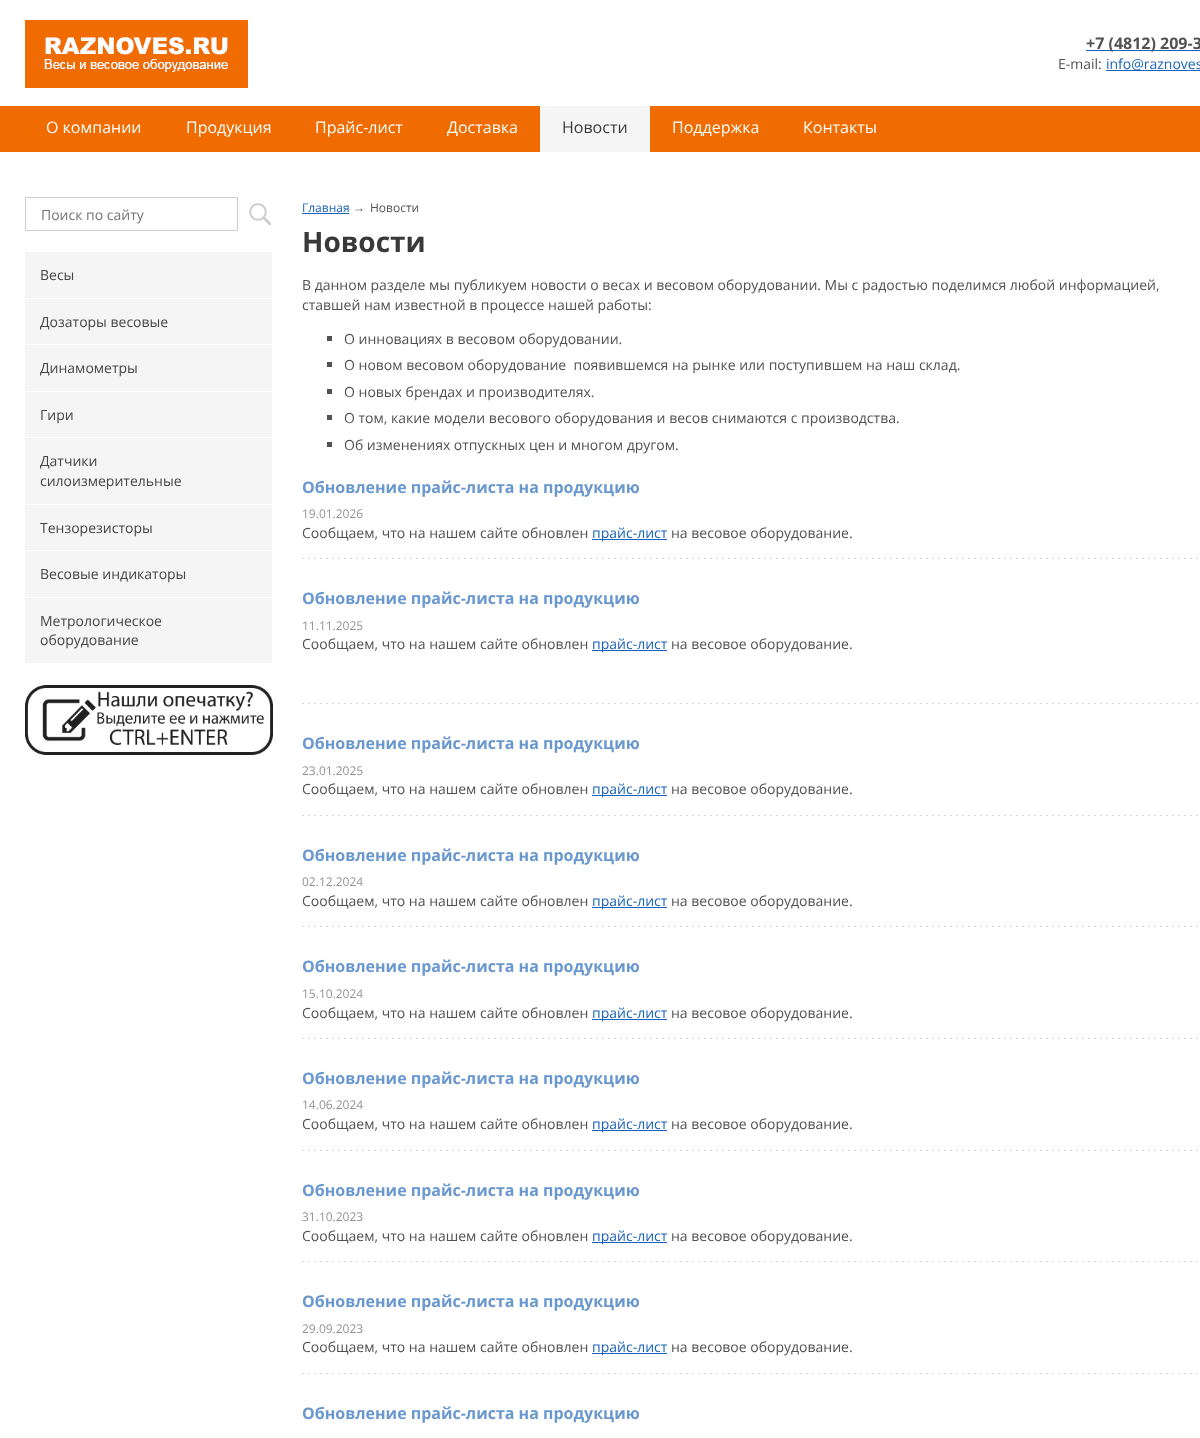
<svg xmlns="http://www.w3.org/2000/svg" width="1200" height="1438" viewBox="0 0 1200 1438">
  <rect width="100%" height="100%" fill="#fff"/>
  <image x="25" y="20" width="223" height="68" href="img/1.png"/>
  <path d="M1086 50h114v1H1086z" fill="#1a63ba"/>
  <path d="M1106 70h94v1H1106z" fill="#1a63ba"/>
  <path d="M0 106h1200v46H0z" fill="#f06c00"/>
  <path d="M540 106h110v46H540z" fill="#f5f5f5"/>
  <path d="M25.5 197.5h212v33H25.5z" fill="none" stroke="#cecece"/>
  <image x="249" y="203" width="22" height="22" href="img/2.png"/>
  <path d="M25 252h247v46H25z" fill="#f5f5f5"/>
  <path d="M25 299h247v45H25z" fill="#f5f5f5"/>
  <path d="M25 345h247v46H25z" fill="#f5f5f5"/>
  <path d="M25 392h247v45H25z" fill="#f5f5f5"/>
  <path d="M25 438h247v66H25z" fill="#f5f5f5"/>
  <path d="M25 505h247v45H25z" fill="#f5f5f5"/>
  <path d="M25 551h247v46H25z" fill="#f5f5f5"/>
  <path d="M25 598h247v65H25z" fill="#f5f5f5"/>
  <image x="25" y="685" width="248" height="70" href="img/3.png"/>
  <path d="M302 213h47v1H302z" fill="#1a63ba"/>
  <path d="M327 336h5v5H327z" fill="#525252"/>
  <path d="M327 362h5v5H327z" fill="#525252"/>
  <path d="M327 389h5v5H327z" fill="#525252"/>
  <path d="M327 415h5v5H327z" fill="#525252"/>
  <path d="M327 442h5v5H327z" fill="#525252"/>
  <image x="302" y="558" width="896" height="1" href="img/4.png"/>
  <path d="M592 539h75v1H592z" fill="#1a63ba"/>
  <image x="302" y="703" width="896" height="1" href="img/4.png"/>
  <path d="M592 650h75v1H592z" fill="#1a63ba"/>
  <image x="302" y="815" width="896" height="1" href="img/4.png"/>
  <path d="M592 795h75v1H592z" fill="#1a63ba"/>
  <image x="302" y="926" width="896" height="1" href="img/4.png"/>
  <path d="M592 907h75v1H592z" fill="#1a63ba"/>
  <image x="302" y="1038" width="896" height="1" href="img/4.png"/>
  <path d="M592 1019h75v1H592z" fill="#1a63ba"/>
  <image x="302" y="1150" width="896" height="1" href="img/4.png"/>
  <path d="M592 1130h75v1H592z" fill="#1a63ba"/>
  <image x="302" y="1261" width="896" height="1" href="img/4.png"/>
  <path d="M592 1242h75v1H592z" fill="#1a63ba"/>
  <image x="302" y="1373" width="896" height="1" href="img/4.png"/>
  <path d="M592 1353h75v1H592z" fill="#1a63ba"/>
  <text x="1086" y="49" font-family="Open Sans" font-size="16" font-weight="bold" fill="#525252">+7 (4812) 209-3</text>
  <text x="1058" y="69" font-family="Open Sans" font-size="14" fill="#525252">E-mail:</text>
  <text x="1106" y="69" font-family="Open Sans" font-size="14" fill="#1a63ba">info@raznoves</text>
  <g font-family="Open Sans" font-size="16" fill="#fff">
    <text x="46" y="133">О компании</text>
    <text x="186" y="133">Продукция</text>
    <text x="315" y="133">Прайс-лист</text>
    <text x="447" y="133">Доставка</text>
  </g>
  <text x="562" y="133" font-family="Open Sans" font-size="16" fill="#3a3939">Новости</text>
  <g font-family="Open Sans" font-size="16" fill="#fff">
    <text x="672" y="133">Поддержка</text>
    <text x="803" y="133">Контакты</text>
  </g>
  <text x="41" y="220" font-family="Open Sans" font-size="14" fill="#757575">Поиск по сайту</text>
  <g font-family="Open Sans" font-size="14" fill="#464646">
    <text x="40" y="280">Весы</text>
    <text x="40" y="327">Дозаторы весовые</text>
    <text x="40" y="373">Динамометры</text>
    <text x="40" y="420">Гири</text>
    <text x="40" y="466">Датчики</text>
    <text x="40" y="486">силоизмерительные</text>
    <text x="40" y="533">Тензорезисторы</text>
    <text x="40" y="579">Весовые индикаторы</text>
    <text x="40" y="626">Метрологическое</text>
    <text x="40" y="645">оборудование</text>
  </g>
  <text x="302" y="212" font-family="Open Sans" font-size="12" fill="#1a63ba">Главная</text>
  <text x="353" y="212" font-family="Liberation Sans" font-size="12" fill="#525252">→</text>
  <text x="370" y="212" font-family="Open Sans" font-size="12" fill="#525252">Новости</text>
  <text x="302" y="252" font-family="Open Sans" font-size="28" font-weight="bold" fill="#3a3939">Новости</text>
  <g font-family="Open Sans" font-size="14" fill="#525252">
    <text x="302" y="290">В данном разделе мы публикуем новости о весах и весовом оборудовании. Мы с радостью поделимся любой информацией,</text>
    <text x="302" y="310">ставшей нам известной в процессе нашей работы:</text>
    <text x="344" y="344">О инновациях в весовом оборудовании.</text>
    <text x="344" y="370" xml:space="preserve">О новом весовом оборудование  появившемся на рынке или поступившем на наш склад.</text>
    <text x="344" y="397">О новых брендах и производителях.</text>
    <text x="344" y="423">О том, какие модели весового оборудования и весов снимаются с производства.</text>
    <text x="344" y="450">Об изменениях отпускных цен и многом другом.</text>
  </g>
  <text x="302" y="493" font-family="Open Sans" font-size="16" font-weight="bold" fill="#6998cf">Обновление прайс-листа на продукцию</text>
  <text x="302" y="518" font-family="Open Sans" font-size="12" fill="#939393">19.01.2026</text>
  <text x="302" y="538" font-family="Open Sans" font-size="14" fill="#525252">Сообщаем, что на нашем сайте обновлен</text>
  <text x="592" y="538" font-family="Open Sans" font-size="14" fill="#1a63ba">прайс-лист</text>
  <text x="671" y="538" font-family="Open Sans" font-size="14" fill="#525252">на весовое оборудование.</text>
  <text x="302" y="604" font-family="Open Sans" font-size="16" font-weight="bold" fill="#6998cf">Обновление прайс-листа на продукцию</text>
  <text x="302" y="630" font-family="Open Sans" font-size="12" fill="#939393">11.11.2025</text>
  <text x="302" y="649" font-family="Open Sans" font-size="14" fill="#525252">Сообщаем, что на нашем сайте обновлен</text>
  <text x="592" y="649" font-family="Open Sans" font-size="14" fill="#1a63ba">прайс-лист</text>
  <text x="671" y="649" font-family="Open Sans" font-size="14" fill="#525252">на весовое оборудование.</text>
  <text x="302" y="749" font-family="Open Sans" font-size="16" font-weight="bold" fill="#6998cf">Обновление прайс-листа на продукцию</text>
  <text x="302" y="775" font-family="Open Sans" font-size="12" fill="#939393">23.01.2025</text>
  <text x="302" y="794" font-family="Open Sans" font-size="14" fill="#525252">Сообщаем, что на нашем сайте обновлен</text>
  <text x="592" y="794" font-family="Open Sans" font-size="14" fill="#1a63ba">прайс-лист</text>
  <text x="671" y="794" font-family="Open Sans" font-size="14" fill="#525252">на весовое оборудование.</text>
  <text x="302" y="861" font-family="Open Sans" font-size="16" font-weight="bold" fill="#6998cf">Обновление прайс-листа на продукцию</text>
  <text x="302" y="886" font-family="Open Sans" font-size="12" fill="#939393">02.12.2024</text>
  <text x="302" y="906" font-family="Open Sans" font-size="14" fill="#525252">Сообщаем, что на нашем сайте обновлен</text>
  <text x="592" y="906" font-family="Open Sans" font-size="14" fill="#1a63ba">прайс-лист</text>
  <text x="671" y="906" font-family="Open Sans" font-size="14" fill="#525252">на весовое оборудование.</text>
  <text x="302" y="972" font-family="Open Sans" font-size="16" font-weight="bold" fill="#6998cf">Обновление прайс-листа на продукцию</text>
  <text x="302" y="998" font-family="Open Sans" font-size="12" fill="#939393">15.10.2024</text>
  <text x="302" y="1018" font-family="Open Sans" font-size="14" fill="#525252">Сообщаем, что на нашем сайте обновлен</text>
  <text x="592" y="1018" font-family="Open Sans" font-size="14" fill="#1a63ba">прайс-лист</text>
  <text x="671" y="1018" font-family="Open Sans" font-size="14" fill="#525252">на весовое оборудование.</text>
  <text x="302" y="1084" font-family="Open Sans" font-size="16" font-weight="bold" fill="#6998cf">Обновление прайс-листа на продукцию</text>
  <text x="302" y="1109" font-family="Open Sans" font-size="12" fill="#939393">14.06.2024</text>
  <text x="302" y="1129" font-family="Open Sans" font-size="14" fill="#525252">Сообщаем, что на нашем сайте обновлен</text>
  <text x="592" y="1129" font-family="Open Sans" font-size="14" fill="#1a63ba">прайс-лист</text>
  <text x="671" y="1129" font-family="Open Sans" font-size="14" fill="#525252">на весовое оборудование.</text>
  <text x="302" y="1196" font-family="Open Sans" font-size="16" font-weight="bold" fill="#6998cf">Обновление прайс-листа на продукцию</text>
  <text x="302" y="1221" font-family="Open Sans" font-size="12" fill="#939393">31.10.2023</text>
  <text x="302" y="1241" font-family="Open Sans" font-size="14" fill="#525252">Сообщаем, что на нашем сайте обновлен</text>
  <text x="592" y="1241" font-family="Open Sans" font-size="14" fill="#1a63ba">прайс-лист</text>
  <text x="671" y="1241" font-family="Open Sans" font-size="14" fill="#525252">на весовое оборудование.</text>
  <text x="302" y="1307" font-family="Open Sans" font-size="16" font-weight="bold" fill="#6998cf">Обновление прайс-листа на продукцию</text>
  <text x="302" y="1333" font-family="Open Sans" font-size="12" fill="#939393">29.09.2023</text>
  <text x="302" y="1352" font-family="Open Sans" font-size="14" fill="#525252">Сообщаем, что на нашем сайте обновлен</text>
  <text x="592" y="1352" font-family="Open Sans" font-size="14" fill="#1a63ba">прайс-лист</text>
  <text x="671" y="1352" font-family="Open Sans" font-size="14" fill="#525252">на весовое оборудование.</text>
  <text x="302" y="1419" font-family="Open Sans" font-size="16" font-weight="bold" fill="#6998cf">Обновление прайс-листа на продукцию</text>
</svg>
